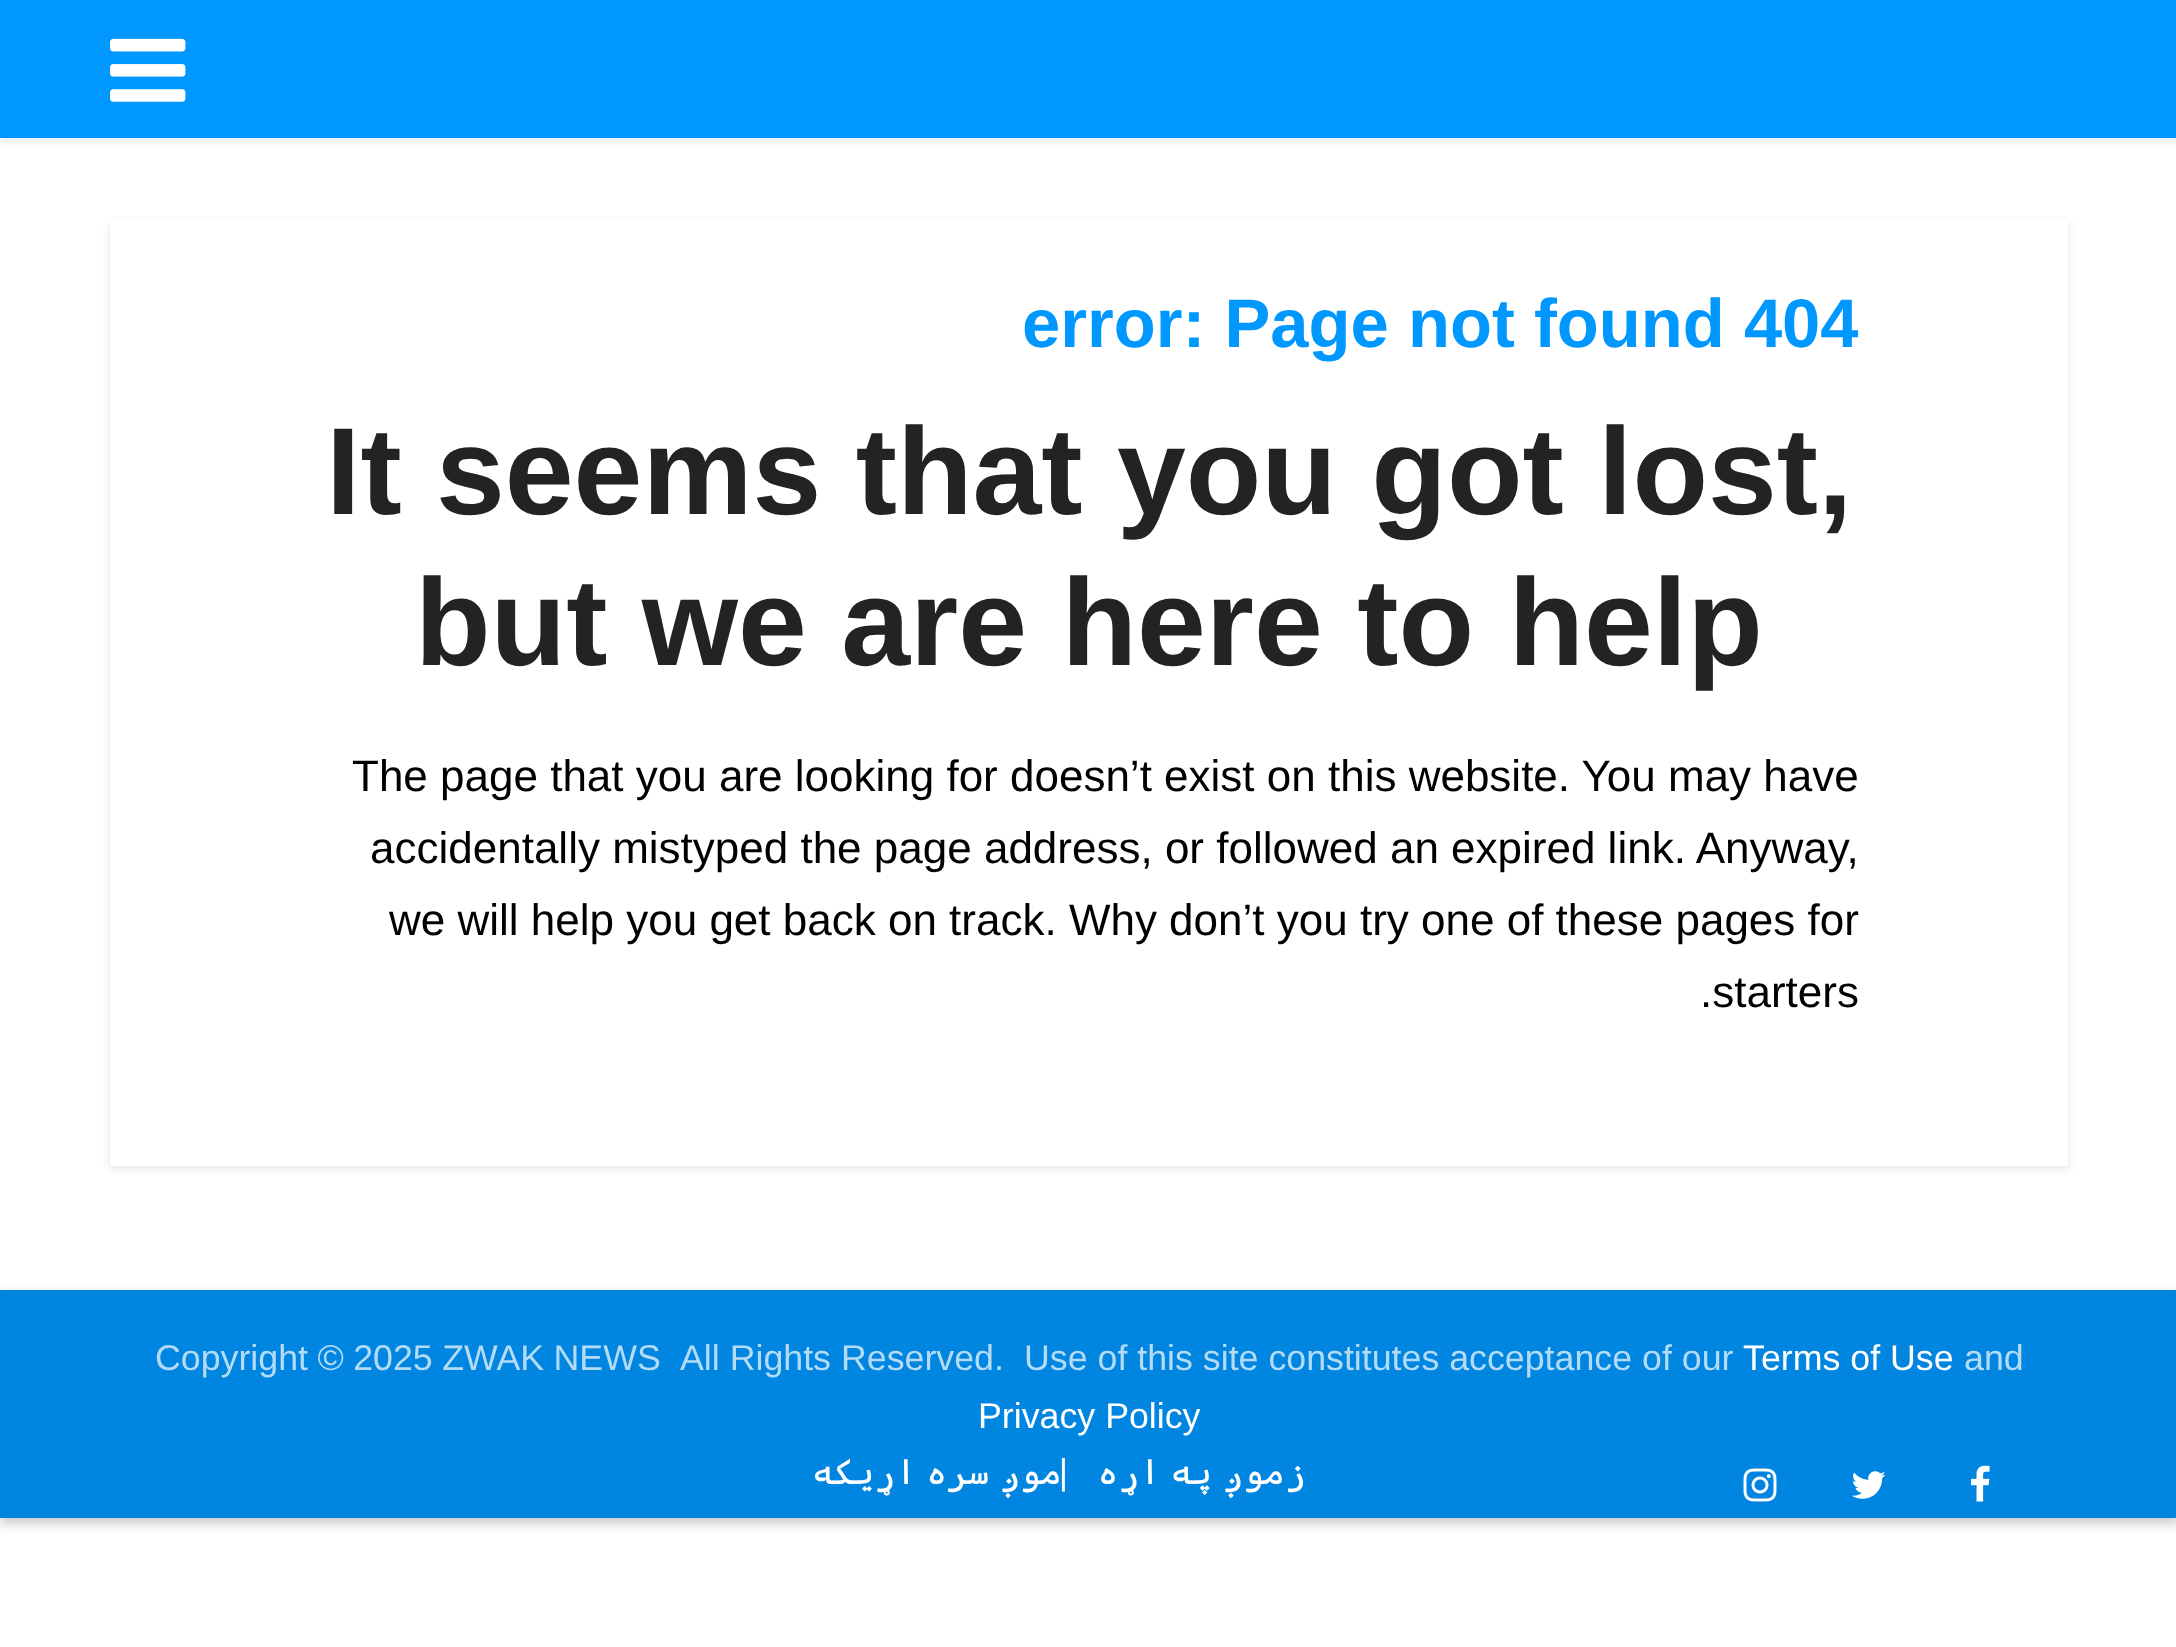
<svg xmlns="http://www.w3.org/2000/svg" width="2176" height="1647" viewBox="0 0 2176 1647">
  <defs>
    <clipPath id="clip1"><path d="M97 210H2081V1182H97ZM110 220H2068V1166H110Z" clip-rule="evenodd"/></clipPath>
  </defs>
  <rect width="100%" height="100%" fill="#fff"/>
  <path d="M0 3h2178v137H0z" fill="#0000001a" filter="blur(4px)"/>
  <path d="M0 0h2176v138H0z" fill="#0098ff"/>
  <image x="110" y="38" width="76" height="64" href="img/1.png"/>
  <g clip-path="url(#clip1)">
    <path d="M110 223h1958v946H110z" fill="#0000001a" filter="blur(4px)"/>
  </g>
  <path d="M0 1295h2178v229H0z" fill="#00000033" filter="blur(5.5px)"/>
  <path d="M0 1290h2176v228H0z" fill="#0086e1"/>
  <image x="1743" y="1468" width="34" height="34" href="img/2.png"/>
  <image x="1852" y="1471" width="34" height="28" href="img/3.png"/>
  <image x="1971" y="1465" width="19" height="37" href="img/4.png"/>
  <text x="1022" y="347" font-family="Liberation Sans" font-size="68.75" font-weight="bold" fill="#0098ff">error: Page not found 404</text>
  <g font-family="Liberation Sans" font-size="123.75" font-weight="bold" fill="#232323">
    <text x="326" y="514">It seems that you got lost,</text>
    <text x="415" y="665">but we are here to help</text>
  </g>
  <g font-family="Liberation Sans" font-size="44" fill="#000">
    <text x="352" y="791">The page that you are looking for doesn’t exist on this website. You may have</text>
    <text x="370" y="863">accidentally mistyped the page address, or followed an expired link. Anyway,</text>
    <text x="389" y="935">we will help you get back on track. Why don’t you try one of these pages for</text>
    <text x="1700" y="1007">.starters</text>
  </g>
  <g font-family="Liberation Sans" font-size="35.75" fill="#b3dbf6">
    <text x="155" y="1370" word-spacing="-0.5">Copyright © 2025 ZWAK NEWS</text>
    <text x="680" y="1370">All Rights Reserved.</text>
    <text x="1024" y="1370">Use of this site constitutes acceptance of our</text>
  </g>
  <text x="1743" y="1370" font-family="Liberation Sans" font-size="35.75" fill="#fff">Terms of Use</text>
  <text x="1964" y="1370" font-family="Liberation Sans" font-size="35.75" fill="#b3dbf6">and</text>
  <text x="978" y="1428" font-family="Liberation Sans" font-size="35.75" fill="#fff">Privacy Policy</text>
  <text x="1062" y="1484" word-spacing="-11" font-family="Cascadia Code" font-size="35.75" direction="rtl" fill="#fff">موږ سره اړیکه</text>
  <text x="1068" y="1484" font-family="Liberation Sans" font-size="35.75" direction="rtl" fill="#fff">|</text>
  <text x="1306" y="1484" word-spacing="-11" font-family="Cascadia Code" font-size="35.75" direction="rtl" fill="#fff">زموږ په اړه</text>
</svg>
